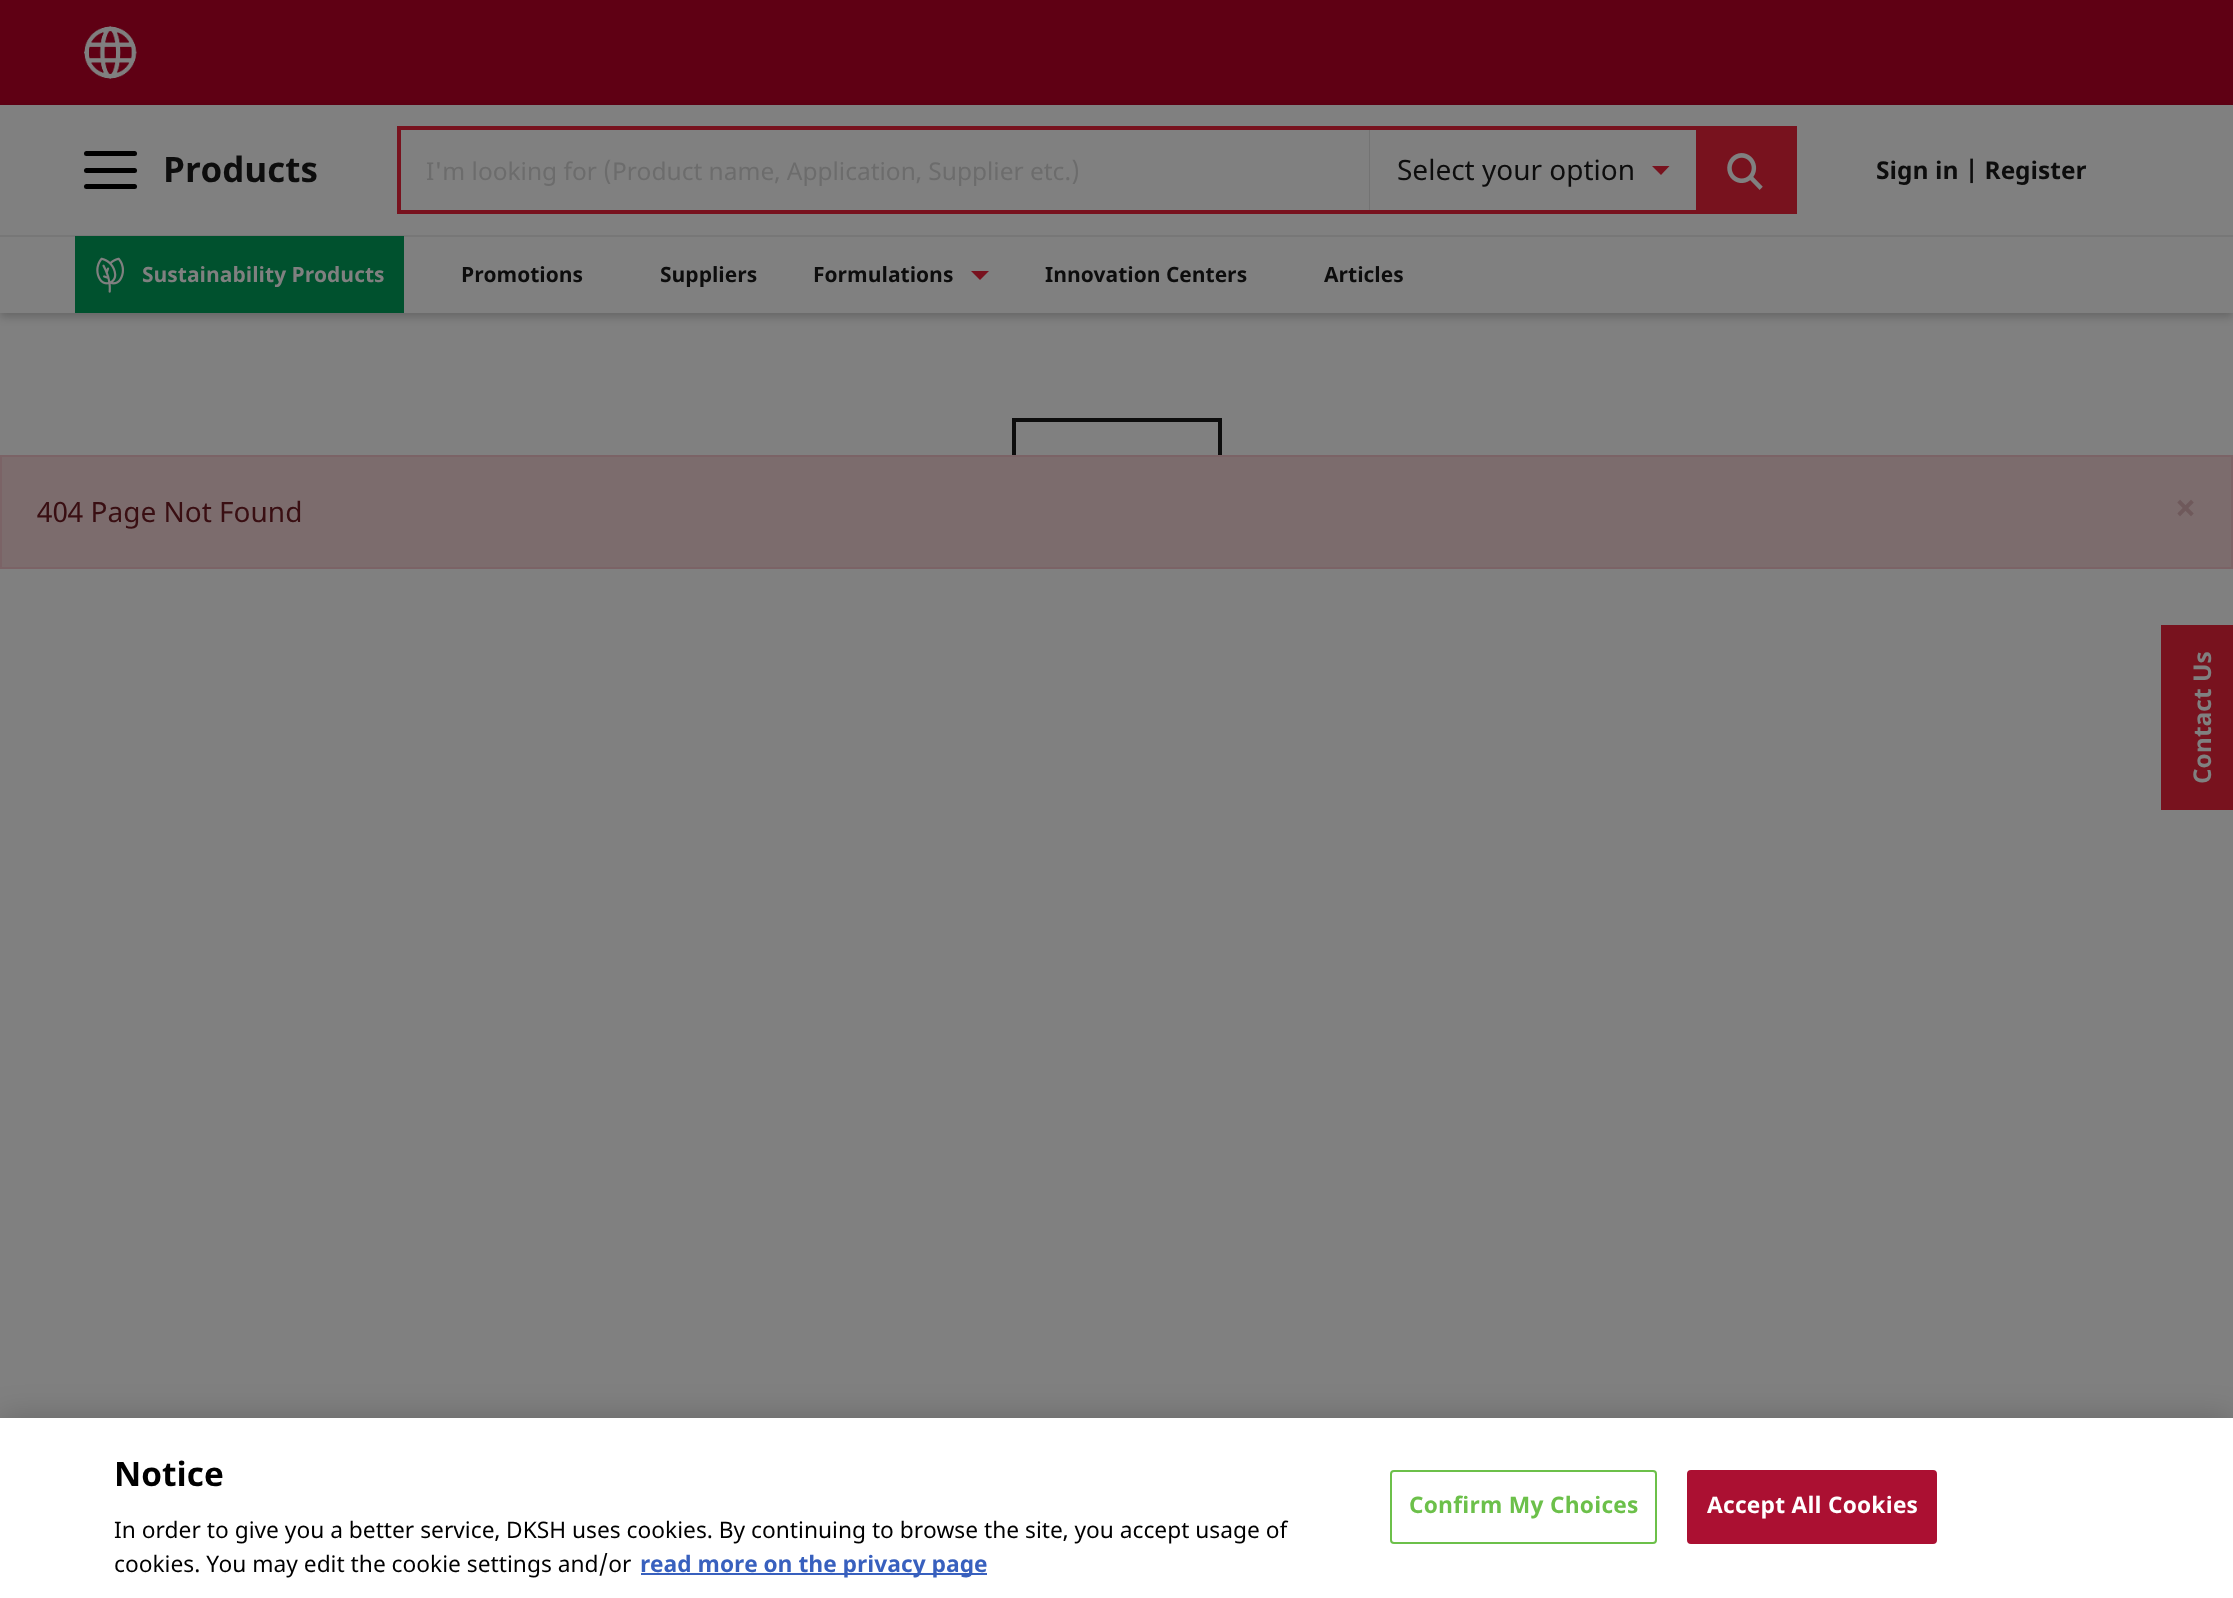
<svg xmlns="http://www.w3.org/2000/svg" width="2233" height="1598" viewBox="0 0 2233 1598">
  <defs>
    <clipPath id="clip1"><path d="M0 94H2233V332H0ZM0 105H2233V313H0Z" clip-rule="evenodd"/></clipPath>
  </defs>
  <rect width="100%" height="100%" fill="#808080"/>
  <path d="M0 0h2233v105H0z" fill="#5f0014"/>
  <image x="84" y="26" width="53" height="53" href="img/1.png"/>
  <g clip-path="url(#clip1)">
    <path d="M0 109h2233v208H0z" fill="#01010133" filter="blur(4.5px)"/>
  </g>
  <rect x="84" y="151" width="53" height="5" rx="2.5" fill="#000"/>
  <rect x="84" y="168" width="53" height="5" rx="2.5" fill="#000"/>
  <rect x="84" y="184" width="53" height="5" rx="2.5" fill="#000"/>
  <path d="M399 128h1396v84H399z" fill="none" stroke="#78121e" stroke-width="4"/>
  <path d="M1369 130h1v80H1369z" fill="#737373"/>
  <path d="M1652 166H1669.5L1661 175Z" fill="#78121e"/>
  <path d="M1696 130h97v80H1696z" fill="#78121e"/>
  <image x="1727" y="153" width="36" height="37" href="img/2.png"/>
  <path d="M0 235h2233v2H0z" fill="#777"/>
  <path d="M75 236h329v77H75z" fill="#00512e"/>
  <image x="96" y="257" width="28" height="36" href="img/3.png"/>
  <path d="M971 271H989L980 280Z" fill="#78121e"/>
  <path d="M1014 420h206v77H1014z" fill="none" stroke="#0d0d0d" stroke-width="4"/>
  <path d="M1 456h2231v112H1z" fill="#7c6c6d" stroke="#7b6366" stroke-width="2"/>
  <path d="M2161 625h72v185H2161z" fill="#78121e"/>
  <path d="M0 1418h2233v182H0z" fill="#00000033" filter="blur(16px)"/>
  <path d="M0 1418h2233v180H0z" fill="#fff"/>
  <path d="M641 1573h346v2H641z" fill="#3860be"/>
  <rect x="1391" y="1471" width="265" height="72" rx="3" fill="none" stroke="#6cc04a" stroke-width="2"/>
  <rect x="1688" y="1471" width="248" height="72" rx="3" fill="#ab1032" stroke="#ab1032" stroke-width="2"/>
  <text x="163" y="182" font-family="Noto Sans" font-size="35" font-weight="bold" fill="#0d0d0d">Products</text>
  <text x="426" y="180" font-family="Noto Sans" font-size="24.5" fill="#6c6c6c">I'm looking for (Product name, Application, Supplier etc.)</text>
  <text x="1397" y="180" font-family="Noto Sans" font-size="28" fill="#0d0d0d">Select your option</text>
  <text x="1876" y="179" font-family="Noto Sans" font-size="24.5" font-weight="bold" fill="#0d0d0d">Sign in | Register</text>
  <text x="142" y="282" font-family="Noto Sans" font-size="21" font-weight="bold" fill="#808080">Sustainability Products</text>
  <g font-family="Noto Sans" font-size="21" font-weight="bold" fill="#0d0d0d">
    <text x="461" y="282">Promotions</text>
    <text x="660" y="282">Suppliers</text>
    <text x="813" y="282">Formulations</text>
    <text x="1045" y="282">Innovation Centers</text>
    <text x="1324" y="282">Articles</text>
  </g>
  <text x="37" y="522" font-family="Noto Sans" font-size="28" fill="#390e12">404 Page Not Found</text>
  <text x="2175" y="520" font-family="Noto Sans" font-size="37" font-weight="bold" fill="#6f595b">×</text>
  <text x="2211" y="784" transform="rotate(-90 2211 784)" font-family="Noto Sans" font-size="24.5" font-weight="bold" fill="#808080">Contact Us</text>
  <text x="114" y="1486" font-family="Noto Sans" font-size="33.5" font-weight="bold" fill="#000">Notice</text>
  <g font-family="Noto Sans" font-size="22.75" fill="#000">
    <text x="114" y="1538">In order to give you a better service, DKSH uses cookies. By continuing to browse the site, you accept usage of</text>
    <text x="114" y="1572">cookies. You may edit the cookie settings and/or</text>
  </g>
  <text x="640" y="1572" font-family="Noto Sans" font-size="22.75" font-weight="bold" fill="#3860be">read more on the privacy page</text>
  <text x="1409" y="1513" font-family="Noto Sans" font-size="22.75" font-weight="bold" letter-spacing="0.25" fill="#6cc04a">Confirm My Choices</text>
  <text x="1707" y="1513" font-family="Noto Sans" font-size="22.75" font-weight="bold" letter-spacing="0.25" fill="#fff">Accept All Cookies</text>
</svg>
